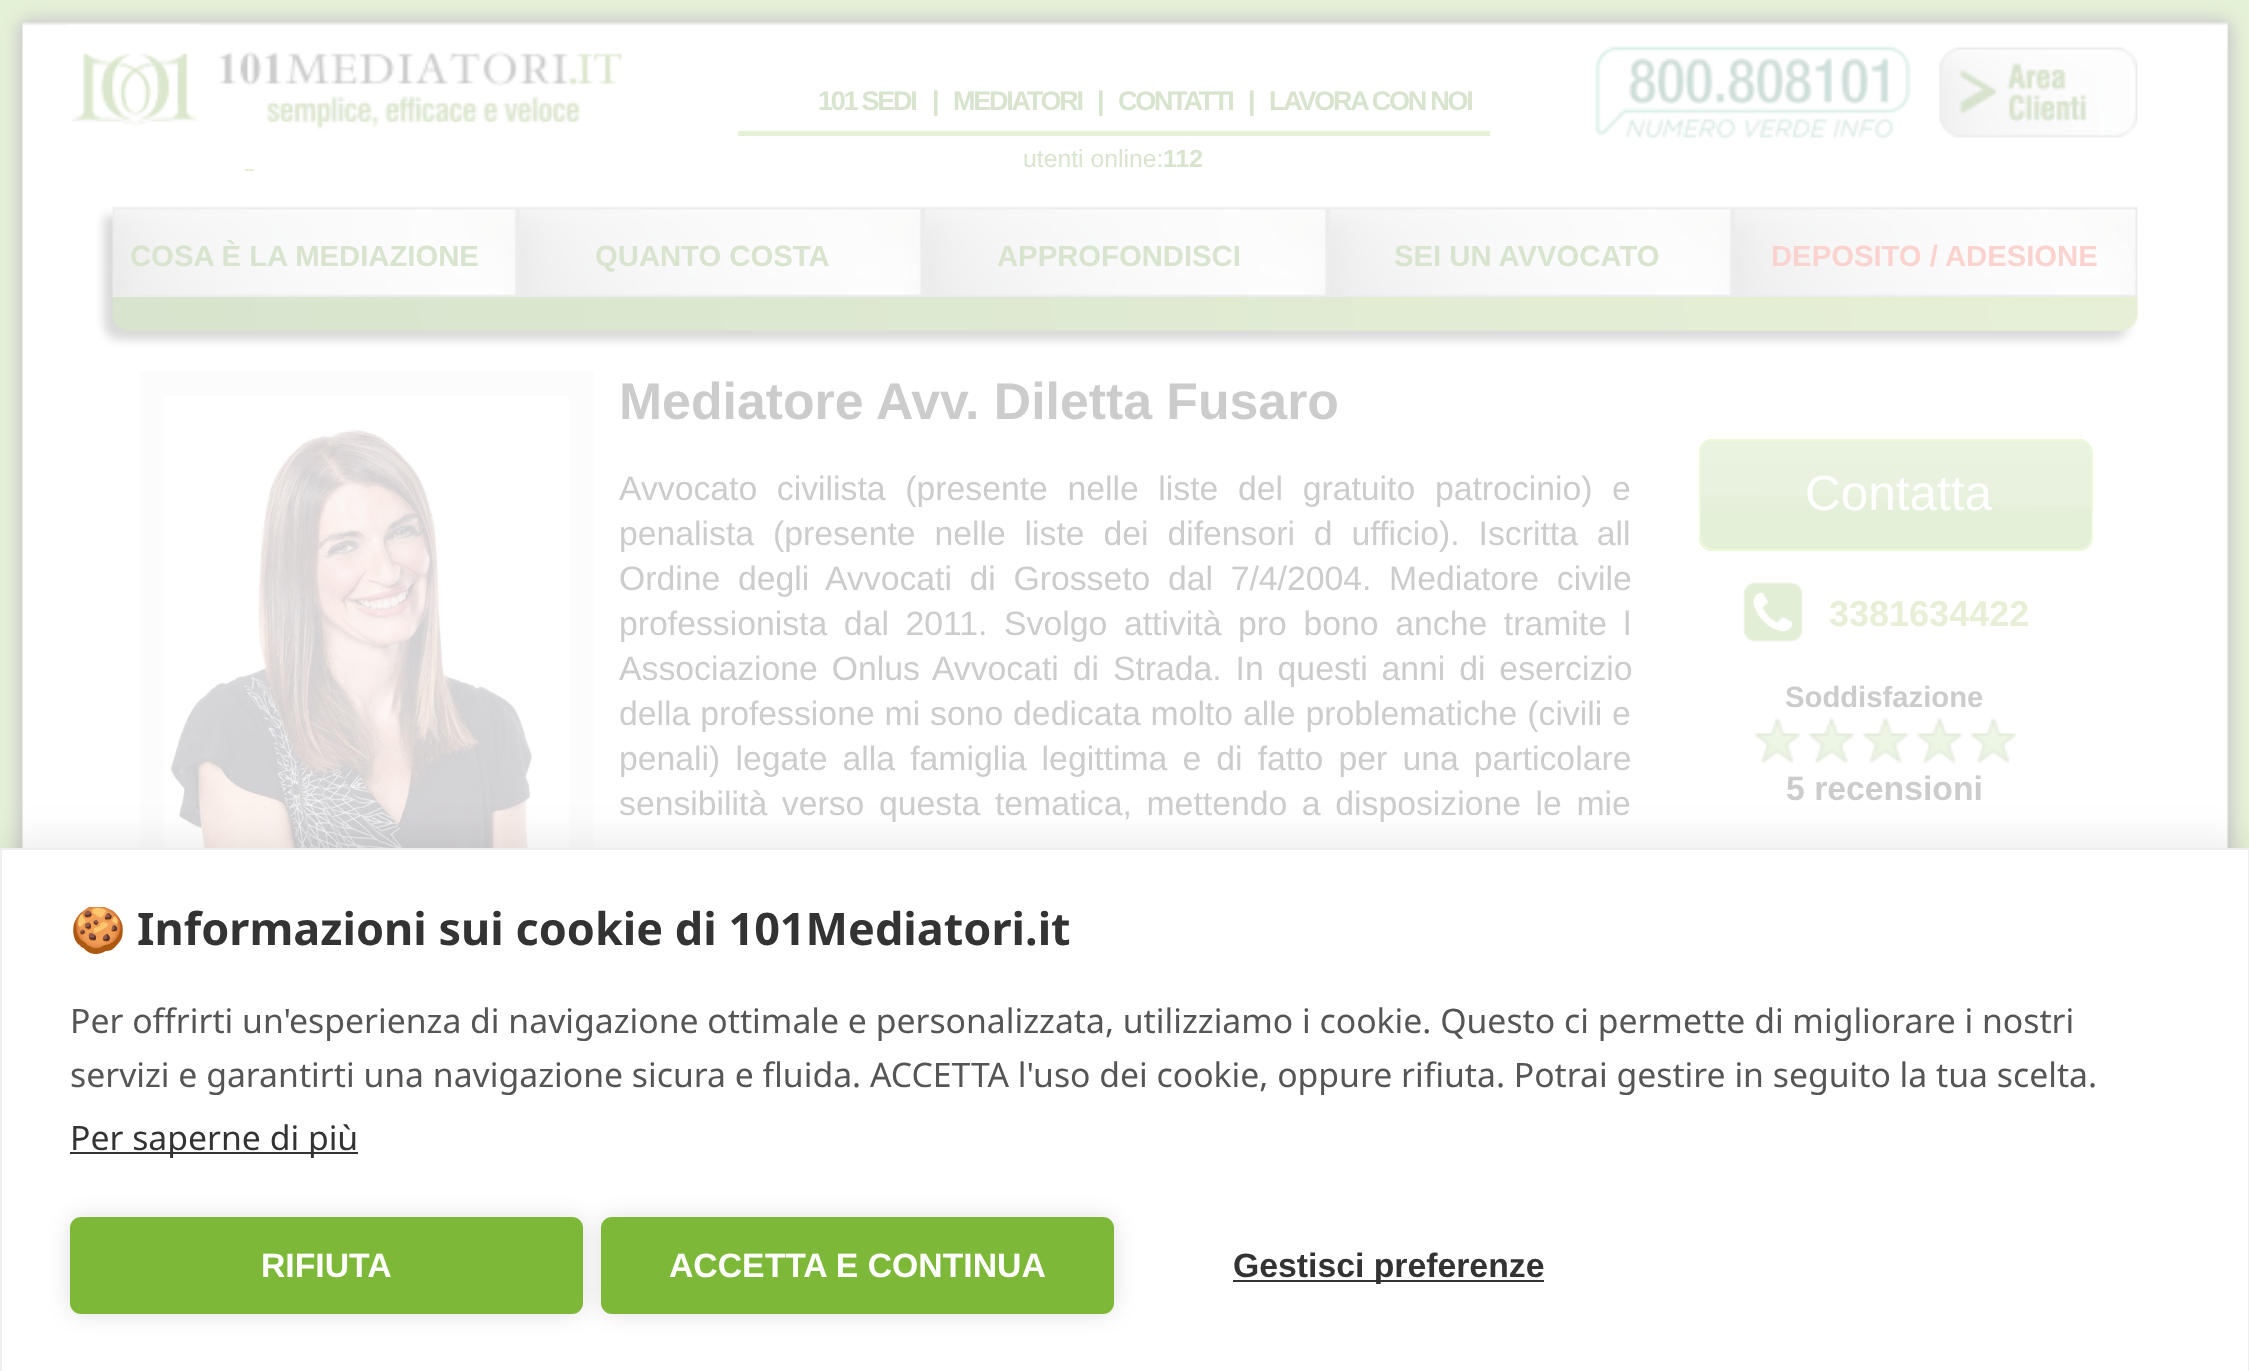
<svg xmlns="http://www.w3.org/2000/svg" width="2249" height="1371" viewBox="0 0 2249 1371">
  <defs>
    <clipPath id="clip1"><path d="M70 907h2110v310H70z"/></clipPath>
  </defs>
  <rect width="100%" height="100%" fill="#e5f1d7"/>
  <image x="4" y="4" width="41" height="41" href="img/1.png"/>
  <image x="45" y="4" width="2160" height="41" href="img/2.png"/>
  <image x="2205" y="4" width="41" height="41" href="img/3.png"/>
  <image x="4" y="45" width="2242" height="803" href="img/4.png"/>
  <image x="67" y="24" width="134" height="103" href="img/5.png"/>
  <image x="217" y="51" width="407" height="80" href="img/6.png"/>
  <path d="M245 169h9v2H245z" fill="#e7f0d7"/>
  <path d="M738 131h752v5H738z" fill="#e5f1d7"/>
  <image x="1595" y="44" width="316" height="96" href="img/7.png"/>
  <image x="1939" y="46" width="199" height="92" href="img/8.png"/>
  <image x="95" y="203" width="2043" height="94" href="img/9.png"/>
  <image x="95" y="297" width="2043" height="51" href="img/10.png"/>
  <path d="M140 371h454v477H140z" fill="#fcfcfc"/>
  <image x="164" y="396" width="406" height="452" href="img/11.png"/>
  <image x="1698" y="438" width="395" height="114" href="img/12.png"/>
  <rect x="1700" y="440" width="392" height="110" rx="13" fill="none" stroke="#eef8db" stroke-width="2"/>
  <image x="1743" y="582" width="60" height="60" href="img/13.png"/>
  <image x="1754" y="717" width="263" height="47" href="img/14.png"/>
  <path d="M0 848h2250v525H0z" fill="#0000001a" filter="blur(22.5px)"/>
  <path d="M1 849h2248v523H1z" fill="#fff" stroke="#eee" stroke-width="2"/>
  <path d="M70 1152h288v2H70z" fill="#333"/>
  <rect x="70" y="1217" width="513" height="97" rx="11" fill="#0000001f" filter="blur(11px)"/>
  <rect x="70" y="1217" width="513" height="97" rx="11" fill="#7db838"/>
  <rect x="601" y="1217" width="513" height="97" rx="11" fill="#0000001f" filter="blur(11px)"/>
  <rect x="601" y="1217" width="513" height="97" rx="11" fill="#7db838"/>
  <path d="M1233 1280h311v2H1233z" fill="#333"/>
  <g font-family="Liberation Sans" font-size="27" font-weight="bold" letter-spacing="-2.25" fill="#d8e4ce">
    <text x="818" y="110">101 SEDI</text>
    <text x="932" y="110">|</text>
    <text x="953" y="110">MEDIATORI</text>
    <text x="1097" y="110">|</text>
    <text x="1118" y="110">CONTATTI</text>
    <text x="1248" y="110">|</text>
    <text x="1269" y="110">LAVORA CON NOI</text>
  </g>
  <text x="1023" y="167" font-family="Liberation Sans" font-size="24.75" fill="#d8e4ce">utenti online:</text>
  <text x="1163" y="167" font-family="Liberation Sans" font-size="24.75" font-weight="bold" fill="#d8e4ce">112</text>
  <g font-family="Liberation Sans" font-size="29.25" font-weight="bold" fill="#d8e4ce">
    <text x="130" y="266">COSA È LA MEDIAZIONE</text>
    <text x="595" y="266">QUANTO COSTA</text>
    <text x="997" y="266">APPROFONDISCI</text>
    <text x="1394" y="266">SEI UN AVVOCATO</text>
  </g>
  <text x="1771" y="266" font-family="Liberation Sans" font-size="29.25" font-weight="bold" fill="#fad3cf">DEPOSITO / ADESIONE</text>
  <text x="619" y="419" font-family="Liberation Sans" font-size="51.75" font-weight="bold" fill="#ccc">Mediatore Avv. Diletta Fusaro</text>
  <g font-family="Liberation Sans" font-size="33.75" fill="#ccc">
    <text x="619" y="500" word-spacing="10.25">Avvocato civilista (presente nelle liste del gratuito patrocinio) e</text>
    <text x="619" y="545" word-spacing="9.5">penalista (presente nelle liste dei difensori d ufficio). Iscritta all</text>
    <text x="619" y="590" word-spacing="8.25">Ordine degli Avvocati di Grosseto dal 7/4/2004. Mediatore civile</text>
    <text x="619" y="635" word-spacing="7.25">professionista dal 2011. Svolgo attività pro bono anche tramite l</text>
    <text x="619" y="680" word-spacing="4.5">Associazione Onlus Avvocati di Strada. In questi anni di esercizio</text>
    <text x="619" y="725" word-spacing="0.5">della professione mi sono dedicata molto alle problematiche (civili e</text>
    <text x="619" y="770" word-spacing="5.75">penali) legate alla famiglia legittima e di fatto per una particolare</text>
    <text x="619" y="815" word-spacing="5.25">sensibilità verso questa tematica, mettendo a disposizione le mie</text>
  </g>
  <text x="1805" y="510" font-family="Liberation Sans" font-size="49.5" fill="#fff">Contatta</text>
  <text x="1829" y="626" font-family="Liberation Sans" font-size="36" font-weight="bold" fill="#e7f0d7">3381634422</text>
  <text x="1785" y="707" font-family="Liberation Sans" font-size="29.25" font-weight="bold" fill="#ccc">Soddisfazione</text>
  <text x="1786" y="800" font-family="Liberation Sans" font-size="33.75" font-weight="bold" fill="#ccc">5 recensioni</text>
  <g clip-path="url(#clip1)">
    <text x="70" y="945" font-family="Noto Color Emoji" font-size="45" font-weight="bold" fill="#333">🍪</text>
  </g>
  <text x="137" y="945" font-family="Noto Sans" font-size="45" font-weight="bold" fill="#333">Informazioni sui cookie di 101Mediatori.it</text>
  <g font-family="Noto Sans" font-size="33.75" fill="#555">
    <text x="70" y="1033">Per offrirti un'esperienza di navigazione ottimale e personalizzata, utilizziamo i cookie. Questo ci permette di migliorare i nostri</text>
    <text x="70" y="1087">servizi e garantirti una navigazione sicura e fluida. ACCETTA l'uso dei cookie, oppure rifiuta. Potrai gestire in seguito la tua scelta.</text>
  </g>
  <text x="70" y="1150" font-family="Noto Sans" font-size="33.75" fill="#333">Per saperne di più</text>
  <g font-family="Liberation Sans" font-size="33.75" font-weight="bold" fill="#fff">
    <text x="261" y="1277">RIFIUTA</text>
    <text x="669" y="1277">ACCETTA E CONTINUA</text>
  </g>
  <text x="1233" y="1277" font-family="Liberation Sans" font-size="33.75" font-weight="bold" fill="#333">Gestisci preferenze</text>
</svg>
